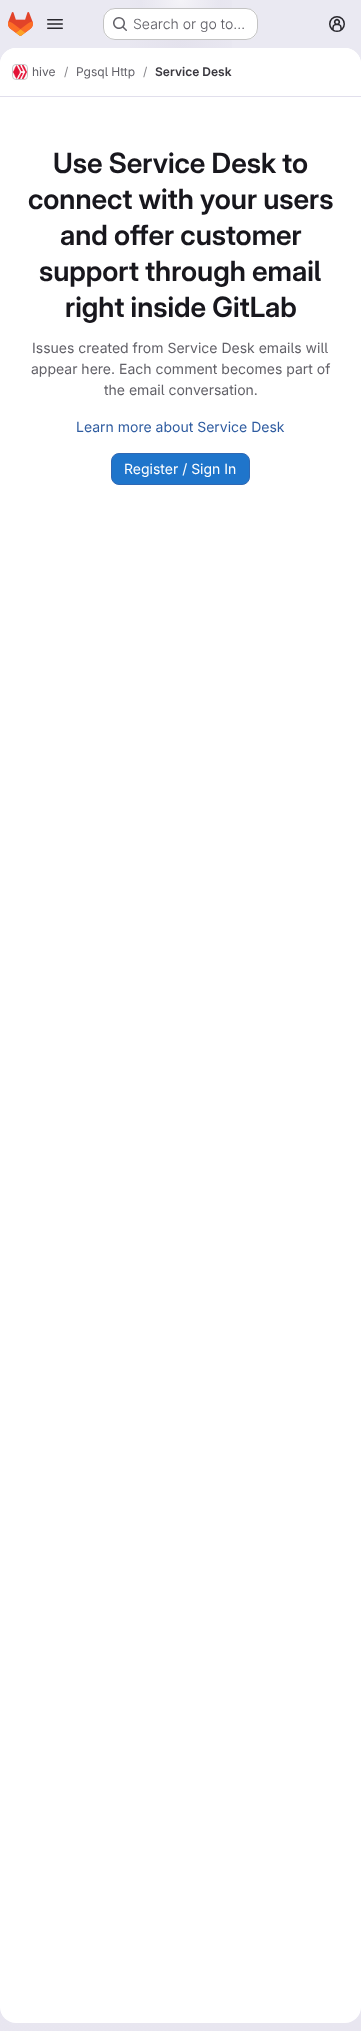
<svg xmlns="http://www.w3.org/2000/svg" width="361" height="2031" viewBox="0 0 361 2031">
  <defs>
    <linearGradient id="g1" gradientUnits="userSpaceOnUse" x1="360" y1="2031" x2="1.4" y2="-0.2"><stop offset="0" stop-color="#e8e6f0"/><stop offset="0.7" stop-color="#eae9f2"/></linearGradient>
    <radialGradient id="g2" gradientUnits="userSpaceOnUse" cx="0" cy="0" r="1" gradientTransform="matrix(181 0 0 2031 181 0)"><stop offset="0" stop-color="#e4e2ed"/><stop offset="0.39" stop-color="#e4e2ed" stop-opacity="0"/></radialGradient>
    <radialGradient id="g3" gradientUnits="userSpaceOnUse" cx="0" cy="0" r="1" gradientTransform="matrix(181 0 0 2031 181 0)"><stop offset="0" stop-color="#e4e2ec"/><stop offset="0.28" stop-color="#e4e2ec" stop-opacity="0"/></radialGradient>
    <radialGradient id="g4" gradientUnits="userSpaceOnUse" cx="181" cy="0" r="2039"><stop offset="0" stop-color="#fff" stop-opacity="0.6"/><stop offset="0.02" stop-color="#fff" stop-opacity="0"/></radialGradient>
  </defs>
  <rect width="100%" height="100%" fill="#fff"/>
  <path d="M0 0h361v2031H0z" fill="url(#g1)"/>
  <path d="M130 0h102v48H130z" fill="url(#g2)"/>
  <path d="M168 18h26v3H168z" fill="url(#g3)"/>
  <path d="M142 0h78v8H142z" fill="url(#g4)"/>
  <image x="8" y="12" width="25" height="24" href="img/1.png"/>
  <image x="47" y="19" width="16" height="10" href="img/2.png"/>
  <rect x="103" y="8" width="155" height="32" rx="12" fill="#fff"/>
  <rect x="103.5" y="8.5" width="154" height="31" rx="11.5" fill="none" stroke="#0505063d"/>
  <image x="113" y="17" width="14" height="14" href="img/3.png"/>
  <image x="329" y="16" width="16" height="16" href="img/4.png"/>
  <rect y="48" width="361" height="1975" rx="16" fill="#fff"/>
  <path d="M16 48H345C354 48 361 55 361 64V97H0V64C0 55 7 48 16 48Z" fill="#fff"/>
  <path d="M0 96h361v1H0z" fill="#e1dfec"/>
  <rect x="12.5" y="64.5" width="15" height="15" rx="3.5" fill="none" stroke="#dcdcde"/>
  <image x="13" y="65" width="14" height="14" href="img/5.png"/>
  <rect x="12.5" y="64.5" width="15" height="15" rx="3.5" fill="none" stroke="#05050614"/>
  <rect x="111.5" y="453.5" width="138" height="31" rx="7.5" fill="#1f75cb" stroke="#2f68b4"/>
  <text x="133" y="29" font-family="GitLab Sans" font-size="14" font-weight="300" fill="#626168">Search or go to…</text>
  <text x="32" y="76" font-family="GitLab Sans" font-size="12" fill="#626168">hive</text>
  <text x="64" y="76" font-family="GitLab Sans" font-size="12" fill="#89888d">/</text>
  <text x="76" y="76" font-family="GitLab Sans" font-size="12" fill="#626168">Pgsql Http</text>
  <text x="143" y="76" font-family="GitLab Sans" font-size="12" fill="#89888d">/</text>
  <text x="155" y="76" font-family="'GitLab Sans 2'" font-size="12" font-weight="600" fill="#3a383f">Service Desk</text>
  <g font-family="GitLab Sans" font-size="28" font-weight="600" fill="#18171d">
    <text x="53" y="173">Use Service Desk to</text>
    <text x="28" y="209">connect with your users</text>
    <text x="60" y="245">and offer customer</text>
    <text x="39" y="281">support through email</text>
    <text x="65" y="317">right inside GitLab</text>
  </g>
  <g font-family="GitLab Sans" font-size="14" fill="#626168">
    <text x="32" y="353">Issues created from Service Desk emails will</text>
    <text x="31" y="374">appear here. Each comment becomes part of</text>
    <text x="104" y="395">the email conversation.</text>
  </g>
  <text x="76" y="432" font-family="GitLab Sans" font-size="14" fill="#2f5ca0">Learn more about Service Desk</text>
  <text x="124" y="474" font-family="GitLab Sans" font-size="14" fill="#fff">Register / Sign In</text>
</svg>
